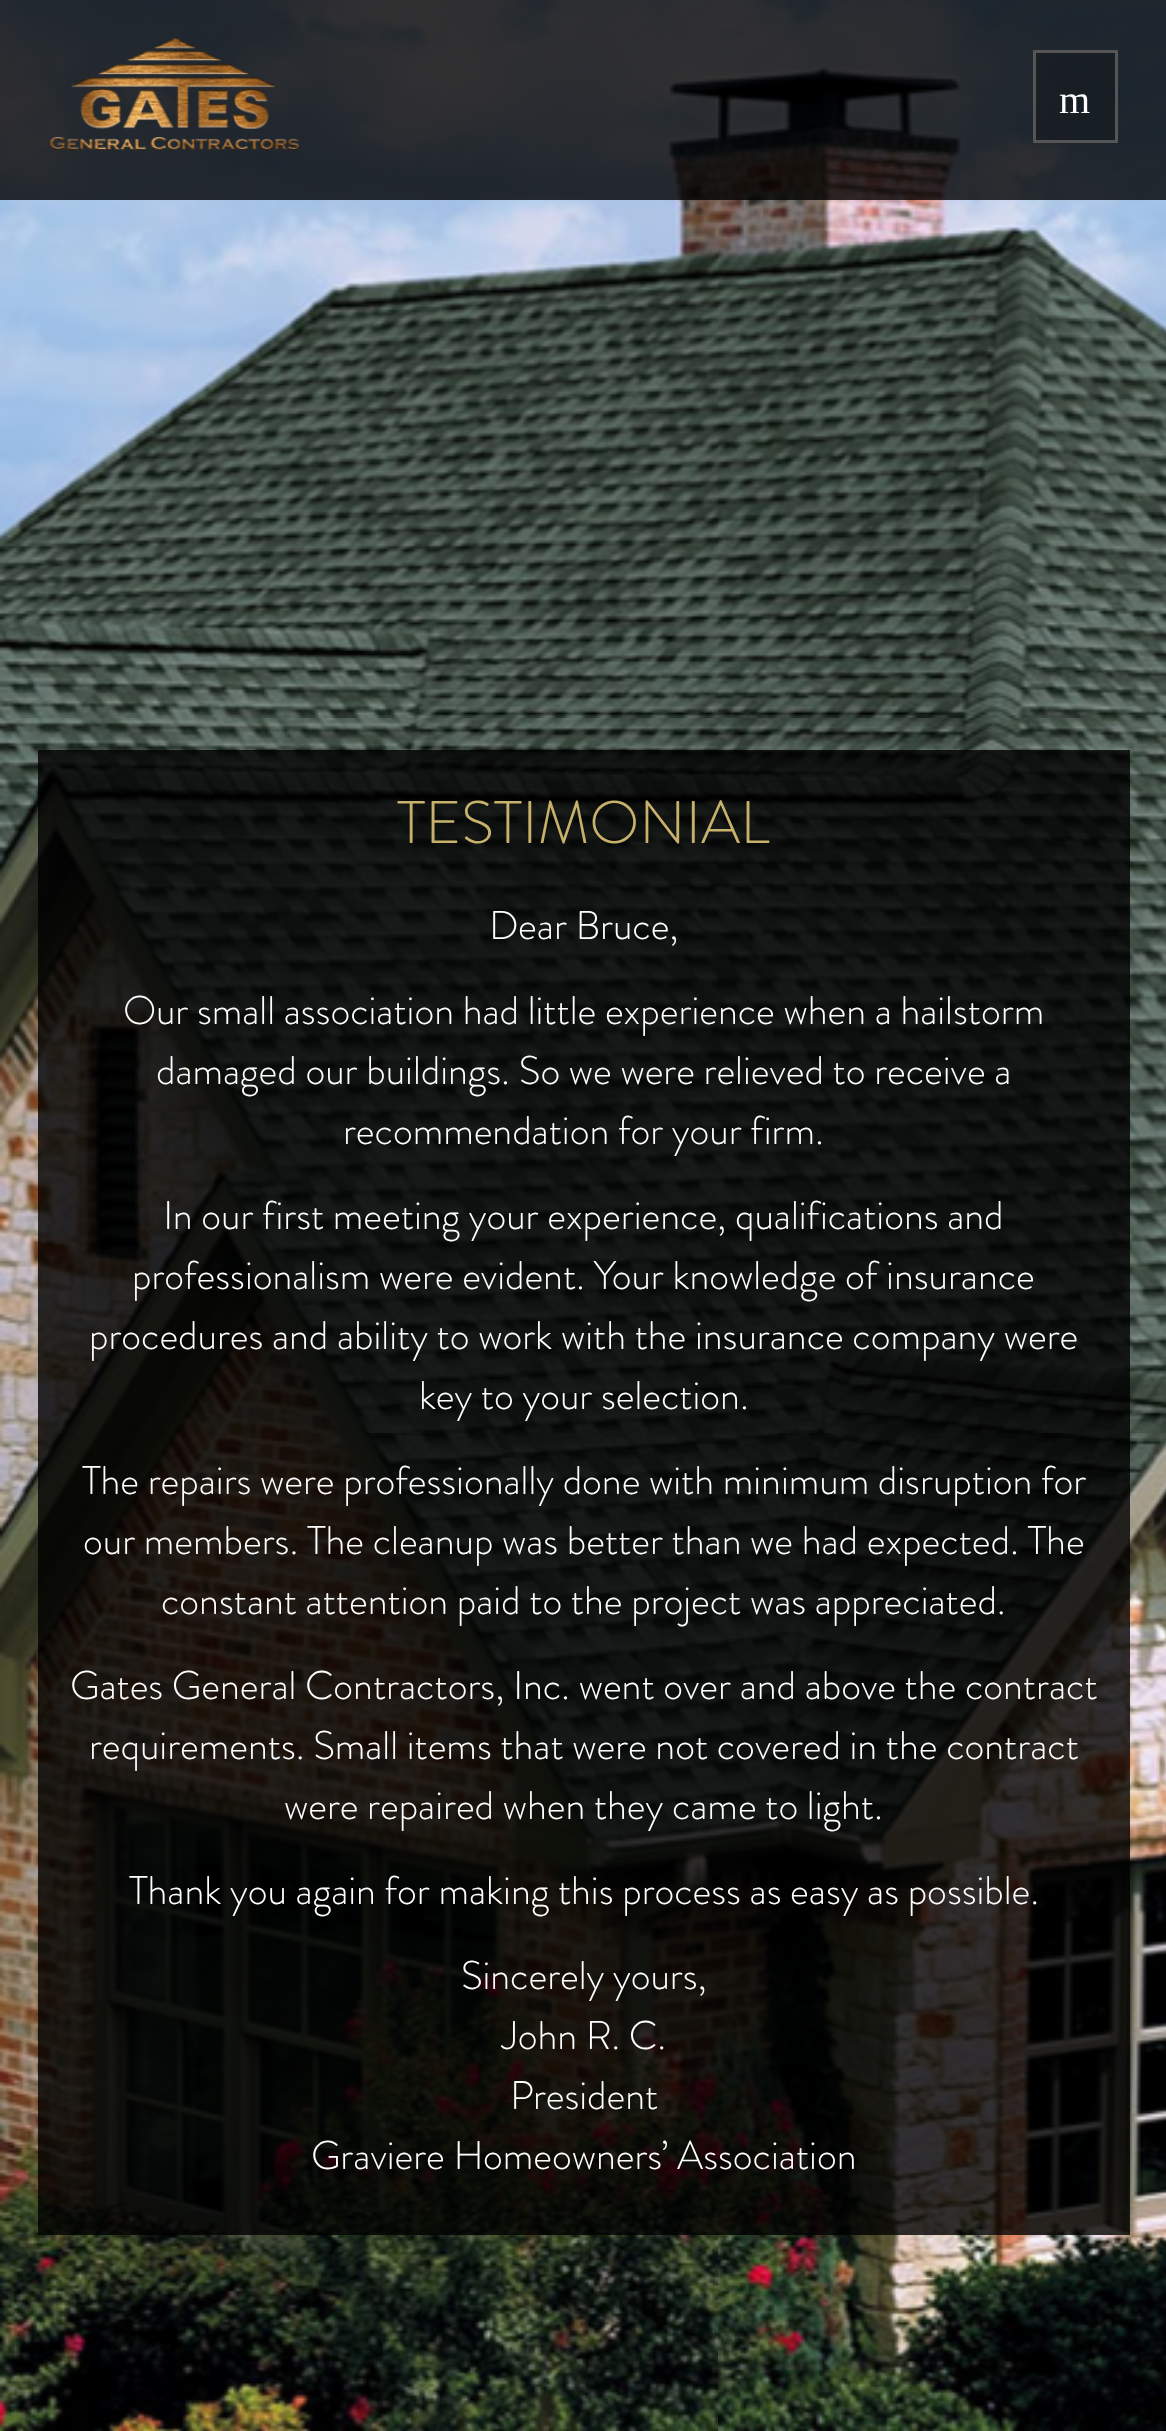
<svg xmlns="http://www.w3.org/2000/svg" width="1166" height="2431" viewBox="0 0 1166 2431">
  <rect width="100%" height="100%" fill="#fff"/>
  <image x="0" y="0" width="1166" height="2431" href="img/1.png"/>
  <path d="M0 0h1166v200H0z" fill="#000000cc"/>
  <image x="50" y="37" width="249" height="113" href="img/2.png"/>
  <path d="M1034.5 51.5h82v90H1034.5z" fill="#00000033" stroke="#555" stroke-width="3"/>
  <path d="M38 750h1092v1485H38z" fill="#000000cc"/>
  <text x="1059" y="113" font-family="Liberation Serif" font-size="40" fill="#fff">m</text>
  <text x="397" y="843" font-family="Brandon Grotesque" font-size="60" font-weight="300" fill="#c8b16b">TESTIMONIAL</text>
  <g font-family="Brandon Grotesque" font-size="40" font-weight="300" fill="#fff">
    <text x="489" y="939">Dear Bruce,</text>
    <text x="123" y="1024">Our small association had little experience when a hailstorm</text>
    <text x="156" y="1084">damaged our buildings. So we were relieved to receive a</text>
    <text x="343" y="1144">recommendation for your firm.</text>
    <text x="163" y="1229">In our first meeting your experience, qualifications and</text>
    <text x="132" y="1289">professionalism were evident. Your knowledge of insurance</text>
    <text x="89" y="1349">procedures and ability to work with the insurance company were</text>
    <text x="419" y="1409">key to your selection.</text>
    <text x="82" y="1494">The repairs were professionally done with minimum disruption for</text>
    <text x="83" y="1554">our members. The cleanup was better than we had expected. The</text>
    <text x="161" y="1614">constant attention paid to the project was appreciated.</text>
    <text x="70" y="1699">Gates General Contractors, Inc. went over and above the contract</text>
    <text x="89" y="1759">requirements. Small items that were not covered in the contract</text>
    <text x="284" y="1819">were repaired when they came to light.</text>
    <text x="129" y="1904">Thank you again for making this process as easy as possible.</text>
    <text x="461" y="1989">Sincerely yours,</text>
    <text x="502" y="2049">John R. C.</text>
    <text x="510" y="2109">President</text>
    <text x="311" y="2169">Graviere Homeowners’ Association</text>
  </g>
</svg>
